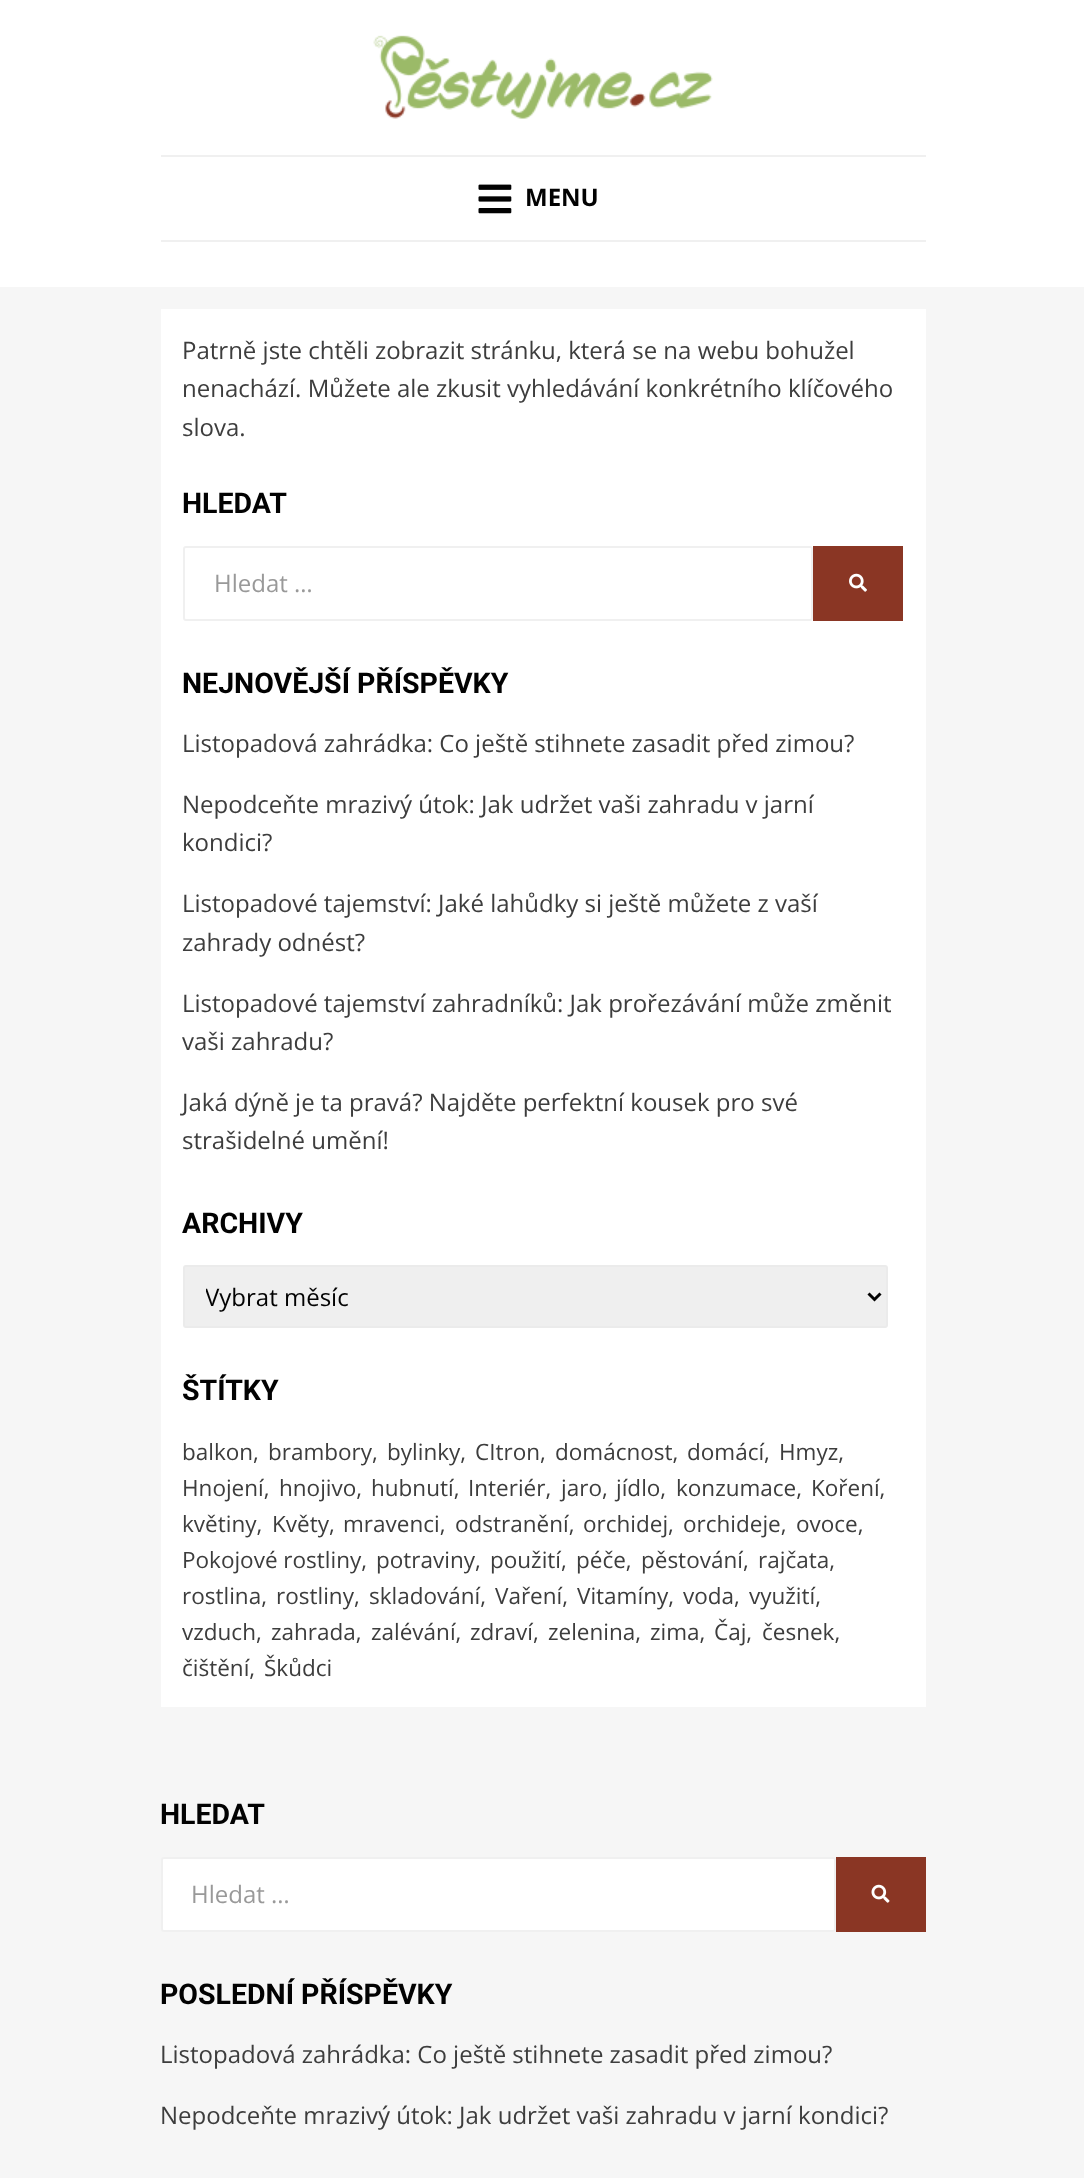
<svg xmlns="http://www.w3.org/2000/svg" width="1084" height="2178" viewBox="0 0 1084 2178">
  <defs>
    <clipPath id="clip1"><path d="M206 1278h642v36H206z"/></clipPath>
  </defs>
  <rect width="100%" height="100%" fill="#f6f6f6"/>
  <path d="M0 0h1084v287H0z" fill="#fff"/>
  <image x="373" y="35" width="340" height="84" href="img/1.png"/>
  <path d="M161 155h765v2H161z" fill="#f0f0f0"/>
  <path d="M161 240h765v2H161z" fill="#f0f0f0"/>
  <image x="478" y="184" width="34" height="30" href="img/2.png"/>
  <path d="M161 309h765v1398H161z" fill="#fff"/>
  <rect x="184" y="547" width="628" height="73" rx="2" fill="none" stroke="#f0f0f0" stroke-width="2"/>
  <path d="M813 546h90v75H813z" fill="#8a3624"/>
  <image x="849" y="573" width="18" height="19" href="img/3.png"/>
  <rect x="184" y="1266" width="703" height="61" rx="2" fill="#efefef" stroke="#ebebeb" stroke-width="2"/>
  <path d="M868.5 1293.5L874.5 1299.5L880.5 1293.5" fill="none" stroke="#020202" stroke-width="3"/>
  <rect x="162" y="1858" width="673" height="73" rx="2" fill="#fff" stroke="#f0f0f0" stroke-width="2"/>
  <path d="M836 1857h90v75H836z" fill="#8a3624"/>
  <image x="871" y="1884" width="19" height="19" href="img/4.png"/>
  <text x="525" y="206" font-family="Open Sans" font-size="24" font-weight="bold" fill="#020202">MENU</text>
  <g font-family="Open Sans" font-size="24" fill="#3d3d3d">
    <text x="182" y="359">Patrně jste chtěli zobrazit stránku, která se na webu bohužel</text>
    <text x="182" y="397">nenachází. Můžete ale zkusit vyhledávání konkrétního klíčového</text>
    <text x="182" y="436">slova.</text>
  </g>
  <text x="182" y="513" font-family="Roboto" font-size="28.5" font-weight="bold" fill="#020202">HLEDAT</text>
  <text x="214" y="592" font-family="Open Sans" font-size="24" fill="#999">Hledat …</text>
  <text x="182" y="693" font-family="Roboto" font-size="28.5" font-weight="bold" fill="#020202">NEJNOVĚJŠÍ PŘÍSPĚVKY</text>
  <g font-family="Open Sans" font-size="24" fill="#3d3d3d">
    <text x="182" y="752">Listopadová zahrádka: Co ještě stihnete zasadit před zimou?</text>
    <text x="182" y="813">Nepodceňte mrazivý útok: Jak udržet vaši zahradu v jarní</text>
    <text x="182" y="851">kondici?</text>
    <text x="182" y="912">Listopadové tajemství: Jaké lahůdky si ještě můžete z vaší</text>
    <text x="182" y="951">zahrady odnést?</text>
    <text x="182" y="1012">Listopadové tajemství zahradníků: Jak prořezávání může změnit</text>
    <text x="182" y="1050">vaši zahradu?</text>
    <text x="182" y="1111">Jaká dýně je ta pravá? Najděte perfektní kousek pro své</text>
    <text x="182" y="1149">strašidelné umění!</text>
  </g>
  <text x="182" y="1233" font-family="Roboto" font-size="28.5" font-weight="bold" fill="#020202">ARCHIVY</text>
  <g clip-path="url(#clip1)">
    <text x="205" y="1306" font-family="Open Sans" font-size="24" fill="#020202">Vybrat měsíc</text>
  </g>
  <text x="182" y="1400" font-family="Roboto" font-size="28.5" font-weight="bold" fill="#020202">ŠTÍTKY</text>
  <g font-family="Open Sans" font-size="22.5" fill="#3d3d3d">
    <text x="182" y="1460">balkon,</text>
    <text x="268" y="1460">brambory,</text>
    <text x="387" y="1460">bylinky,</text>
    <text x="475" y="1460">CItron,</text>
    <text x="555" y="1460">domácnost,</text>
    <text x="687" y="1460">domácí,</text>
    <text x="779" y="1460">Hmyz,</text>
    <text x="182" y="1496">Hnojení,</text>
    <text x="279" y="1496">hnojivo,</text>
    <text x="371" y="1496">hubnutí,</text>
    <text x="468" y="1496">Interiér,</text>
    <text x="561" y="1496">jaro,</text>
    <text x="616" y="1496">jídlo,</text>
    <text x="676" y="1496">konzumace,</text>
    <text x="811" y="1496">Koření,</text>
    <text x="182" y="1532">květiny,</text>
    <text x="272" y="1532">Květy,</text>
    <text x="343" y="1532">mravenci,</text>
    <text x="455" y="1532">odstranění,</text>
    <text x="583" y="1532">orchidej,</text>
    <text x="683" y="1532">orchideje,</text>
    <text x="796" y="1532">ovoce,</text>
    <text x="182" y="1568">Pokojové rostliny,</text>
    <text x="376" y="1568">potraviny,</text>
    <text x="490" y="1568">použití,</text>
    <text x="576" y="1568">péče,</text>
    <text x="641" y="1568">pěstování,</text>
    <text x="758" y="1568">rajčata,</text>
    <text x="182" y="1604">rostlina,</text>
    <text x="276" y="1604">rostliny,</text>
    <text x="369" y="1604">skladování,</text>
    <text x="495" y="1604">Vaření,</text>
    <text x="577" y="1604">Vitamíny,</text>
    <text x="683" y="1604">voda,</text>
    <text x="749" y="1604">využití,</text>
    <text x="182" y="1640">vzduch,</text>
    <text x="271" y="1640">zahrada,</text>
    <text x="371" y="1640">zalévání,</text>
    <text x="470" y="1640">zdraví,</text>
    <text x="548" y="1640">zelenina,</text>
    <text x="650" y="1640">zima,</text>
    <text x="714" y="1640">Čaj,</text>
    <text x="762" y="1640">česnek,</text>
    <text x="182" y="1676">čištění,</text>
    <text x="264" y="1676">Škůdci</text>
  </g>
  <text x="160" y="1824" font-family="Roboto" font-size="28.5" font-weight="bold" fill="#020202">HLEDAT</text>
  <text x="191" y="1903" font-family="Open Sans" font-size="24" fill="#999">Hledat …</text>
  <text x="160" y="2004" font-family="Roboto" font-size="28.5" font-weight="bold" fill="#020202">POSLEDNÍ PŘÍSPĚVKY</text>
  <g font-family="Open Sans" font-size="24" fill="#3d3d3d">
    <text x="160" y="2063">Listopadová zahrádka: Co ještě stihnete zasadit před zimou?</text>
    <text x="160" y="2124">Nepodceňte mrazivý útok: Jak udržet vaši zahradu v jarní kondici?</text>
  </g>
</svg>
